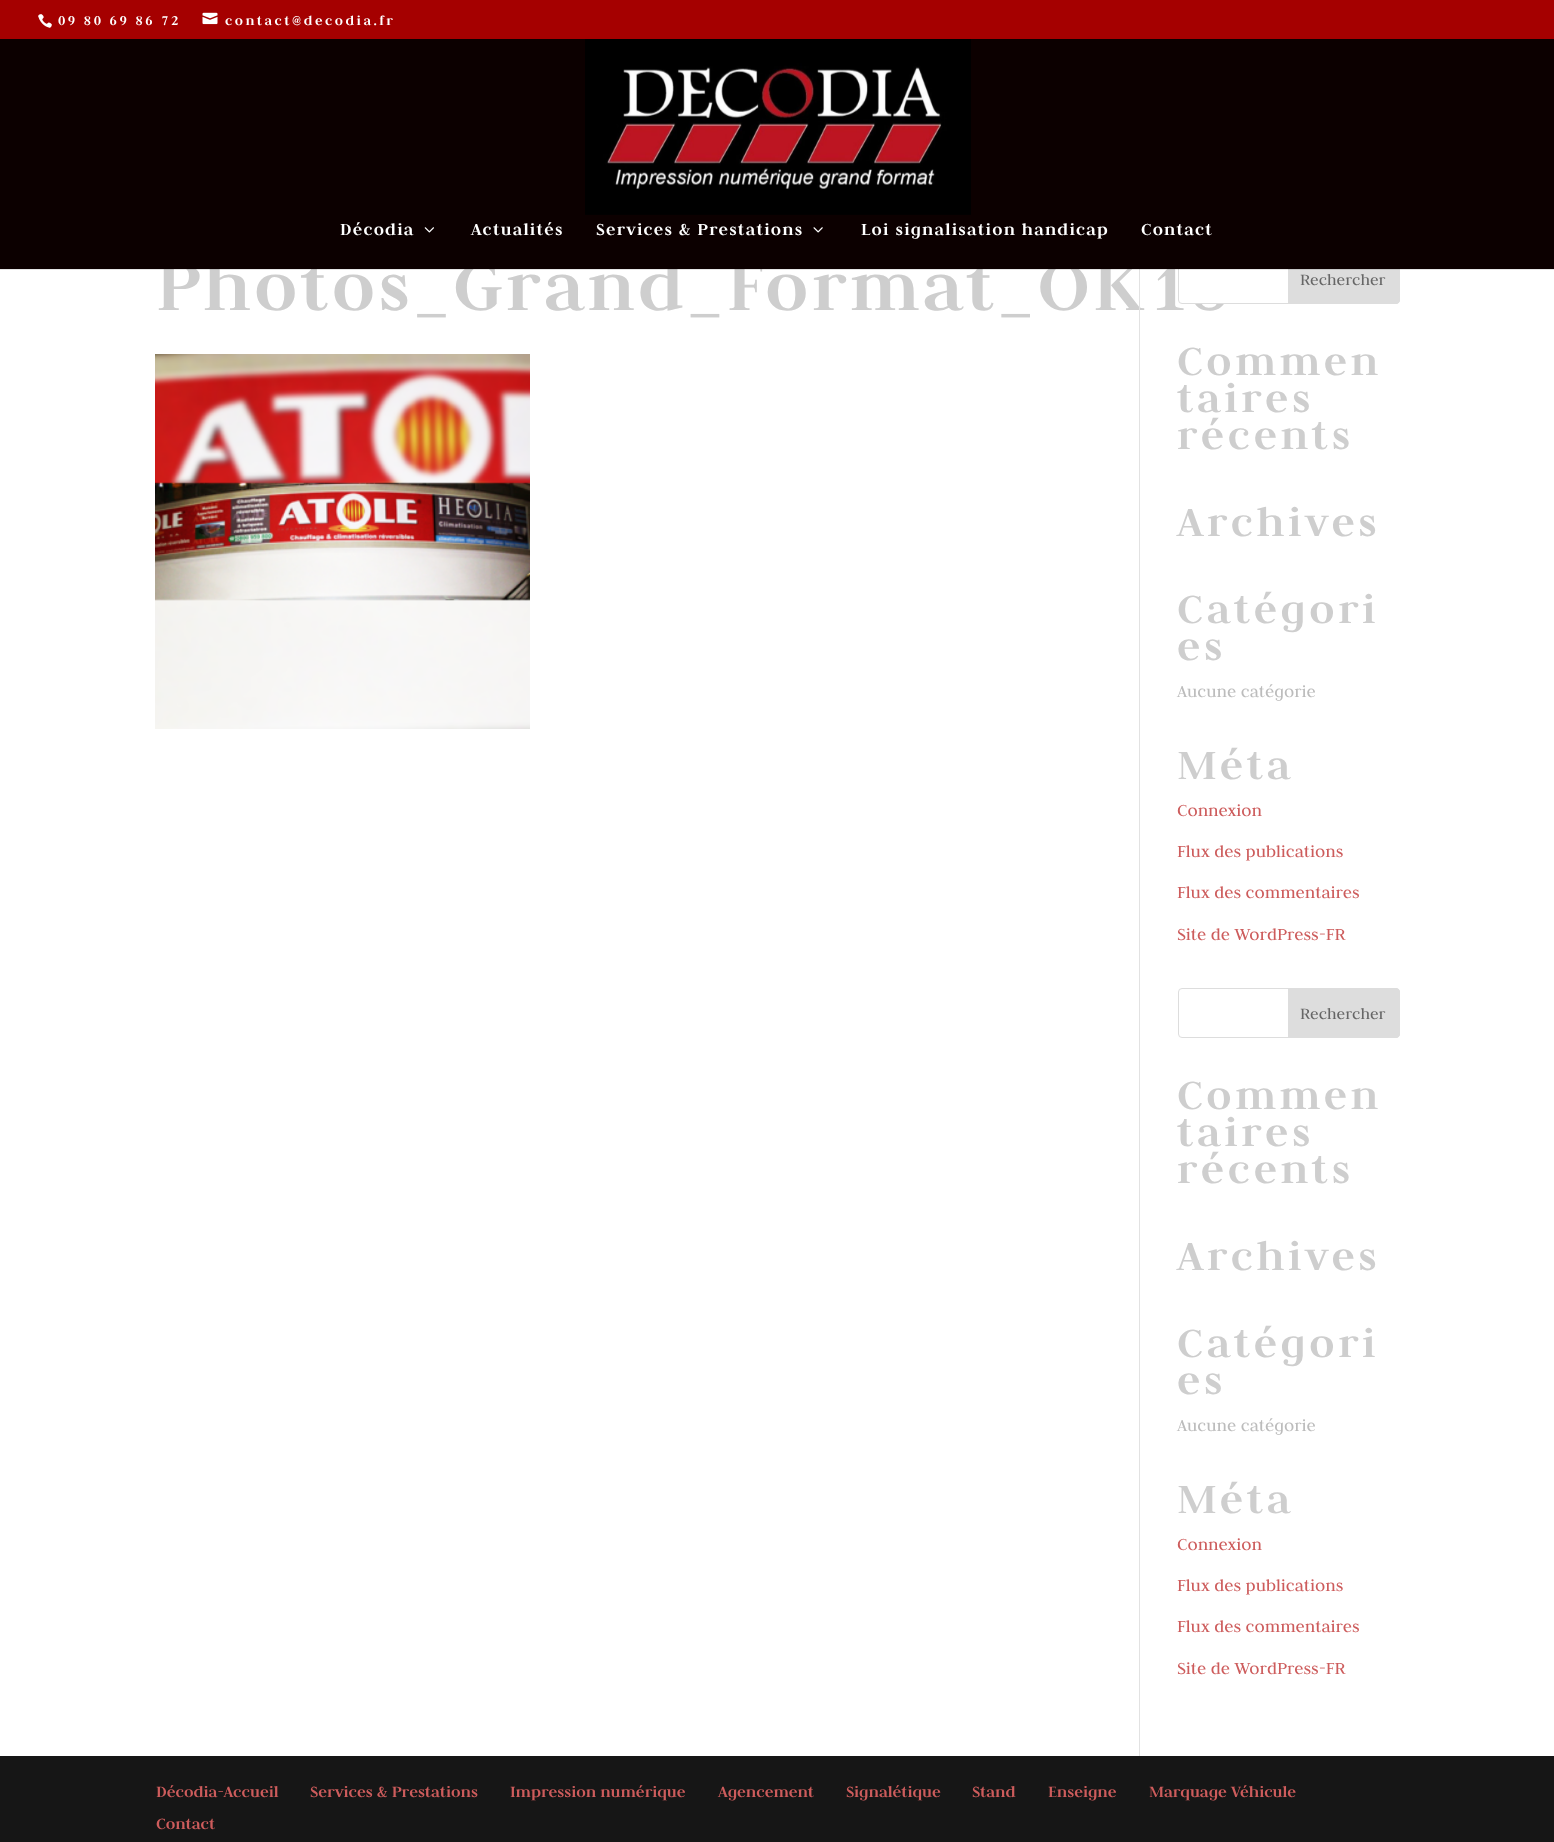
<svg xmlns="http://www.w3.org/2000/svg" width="1554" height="1842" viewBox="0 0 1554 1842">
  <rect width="100%" height="100%" fill="#fff"/>
  <path d="M0 0h1554v39H0z" fill="#a50000"/>
  <image x="38" y="14" width="14" height="14" href="img/1.png"/>
  <image x="202" y="12" width="16" height="13" href="img/2.png"/>
  <image x="155" y="354" width="375" height="375" href="img/6.png"/>
  <rect x="1178.5" y="988.5" width="221" height="49" rx="3.5" fill="none" stroke="#ddd"/>
  <path d="M1288.5 988.5H1396C1398 988.5 1399.5 990 1399.5 992V1034C1399.5 1036 1398 1037.5 1396 1037.5H1288.5Z" fill="#ddd" stroke="#ddd"/>
  <path d="M0 1756h1554v86H0z" fill="#161616"/>
  <g font-family="Judson" font-size="15" font-weight="bold" letter-spacing="2.5" fill="#fff">
    <text x="58" y="25">09 80 69 86 72</text>
    <text x="225" y="25">contact@decodia.fr</text>
  </g>
  <text x="156" y="310" font-family="Judson" font-size="78.75" font-weight="bold" letter-spacing="3.75" fill="#cecece">Photos_Grand_Format_OK18</text>
  <rect x="1178.5" y="254.5" width="221" height="49" rx="3.5" fill="#fff" stroke="#ddd"/>
  <path d="M1288.5 254.5H1396C1398 254.5 1399.5 256 1399.5 258V300C1399.5 302 1398 303.5 1396 303.5H1288.5Z" fill="#ddd" stroke="#ddd"/>
  <path d="M0 39h1554v230H0z" fill="#0c0000"/>
  <g font-family="Judson" font-size="18.75" font-weight="bold" letter-spacing="1.25" fill="#fff">
    <text x="1141" y="235">Contact</text>
    <text x="861" y="235">Loi signalisation handicap</text>
  </g>
  <image x="813" y="227" width="10" height="6" href="img/5.png"/>
  <g font-family="Judson" font-size="18.75" font-weight="bold" letter-spacing="1.25" fill="#fff">
    <text x="596" y="235">Services &amp; Prestations</text>
    <text x="471" y="235">Actualités</text>
  </g>
  <image x="424" y="227" width="10" height="6" href="img/4.png"/>
  <text x="340" y="235" font-family="Judson" font-size="18.75" font-weight="bold" letter-spacing="1.25" fill="#fff">Décodia</text>
  <image x="585" y="39" width="386" height="176" href="img/3.png"/>
  <text x="1300" y="285" font-family="Judson" font-size="17.5" fill="#666">Rechercher</text>
  <g font-family="Judson" font-size="46.25" font-weight="bold" letter-spacing="3.75" fill="#cecece">
    <text x="1177" y="375">Commen</text>
    <text x="1177" y="412">taires</text>
    <text x="1177" y="449">récents</text>
    <text x="1177" y="536">Archives</text>
    <text x="1177" y="623">Catégori</text>
    <text x="1177" y="660">es</text>
  </g>
  <text x="1177" y="697" font-family="Judson" font-size="18.75" fill="#bcbcbc">Aucune catégorie</text>
  <text x="1177" y="779" font-family="Judson" font-size="46.25" font-weight="bold" letter-spacing="3.75" fill="#cecece">Méta</text>
  <g font-family="Judson" font-size="18.75" fill="#cd5c5c">
    <text x="1177" y="816">Connexion</text>
    <text x="1177" y="857">Flux des publications</text>
    <text x="1177" y="898">Flux des commentaires</text>
    <text x="1177" y="940">Site de WordPress-FR</text>
  </g>
  <text x="1300" y="1019" font-family="Judson" font-size="17.5" fill="#666">Rechercher</text>
  <g font-family="Judson" font-size="46.25" font-weight="bold" letter-spacing="3.75" fill="#cecece">
    <text x="1177" y="1109">Commen</text>
    <text x="1177" y="1146">taires</text>
    <text x="1177" y="1183">récents</text>
    <text x="1177" y="1270">Archives</text>
    <text x="1177" y="1357">Catégori</text>
    <text x="1177" y="1394">es</text>
  </g>
  <text x="1177" y="1431" font-family="Judson" font-size="18.75" fill="#bcbcbc">Aucune catégorie</text>
  <text x="1177" y="1513" font-family="Judson" font-size="46.25" font-weight="bold" letter-spacing="3.75" fill="#cecece">Méta</text>
  <g font-family="Judson" font-size="18.75" fill="#cd5c5c">
    <text x="1177" y="1550">Connexion</text>
    <text x="1177" y="1591">Flux des publications</text>
    <text x="1177" y="1632">Flux des commentaires</text>
    <text x="1177" y="1674">Site de WordPress-FR</text>
  </g>
  <path d="M1139 269h1v1487H1139z" fill="#e2e2e2"/>
  <path d="M0 269h1554v1H0z" fill="#0000001a"/>
  <g font-family="Judson" font-size="17.5" font-weight="bold" fill="#cd5c5c">
    <text x="156" y="1797">Décodia-Accueil</text>
    <text x="310" y="1797">Services &amp; Prestations</text>
    <text x="510" y="1797">Impression numérique</text>
    <text x="718" y="1797">Agencement</text>
    <text x="846" y="1797">Signalétique</text>
    <text x="972" y="1797">Stand</text>
    <text x="1048" y="1797">Enseigne</text>
    <text x="1149" y="1797">Marquage Véhicule</text>
    <text x="156" y="1829">Contact</text>
  </g>
</svg>
